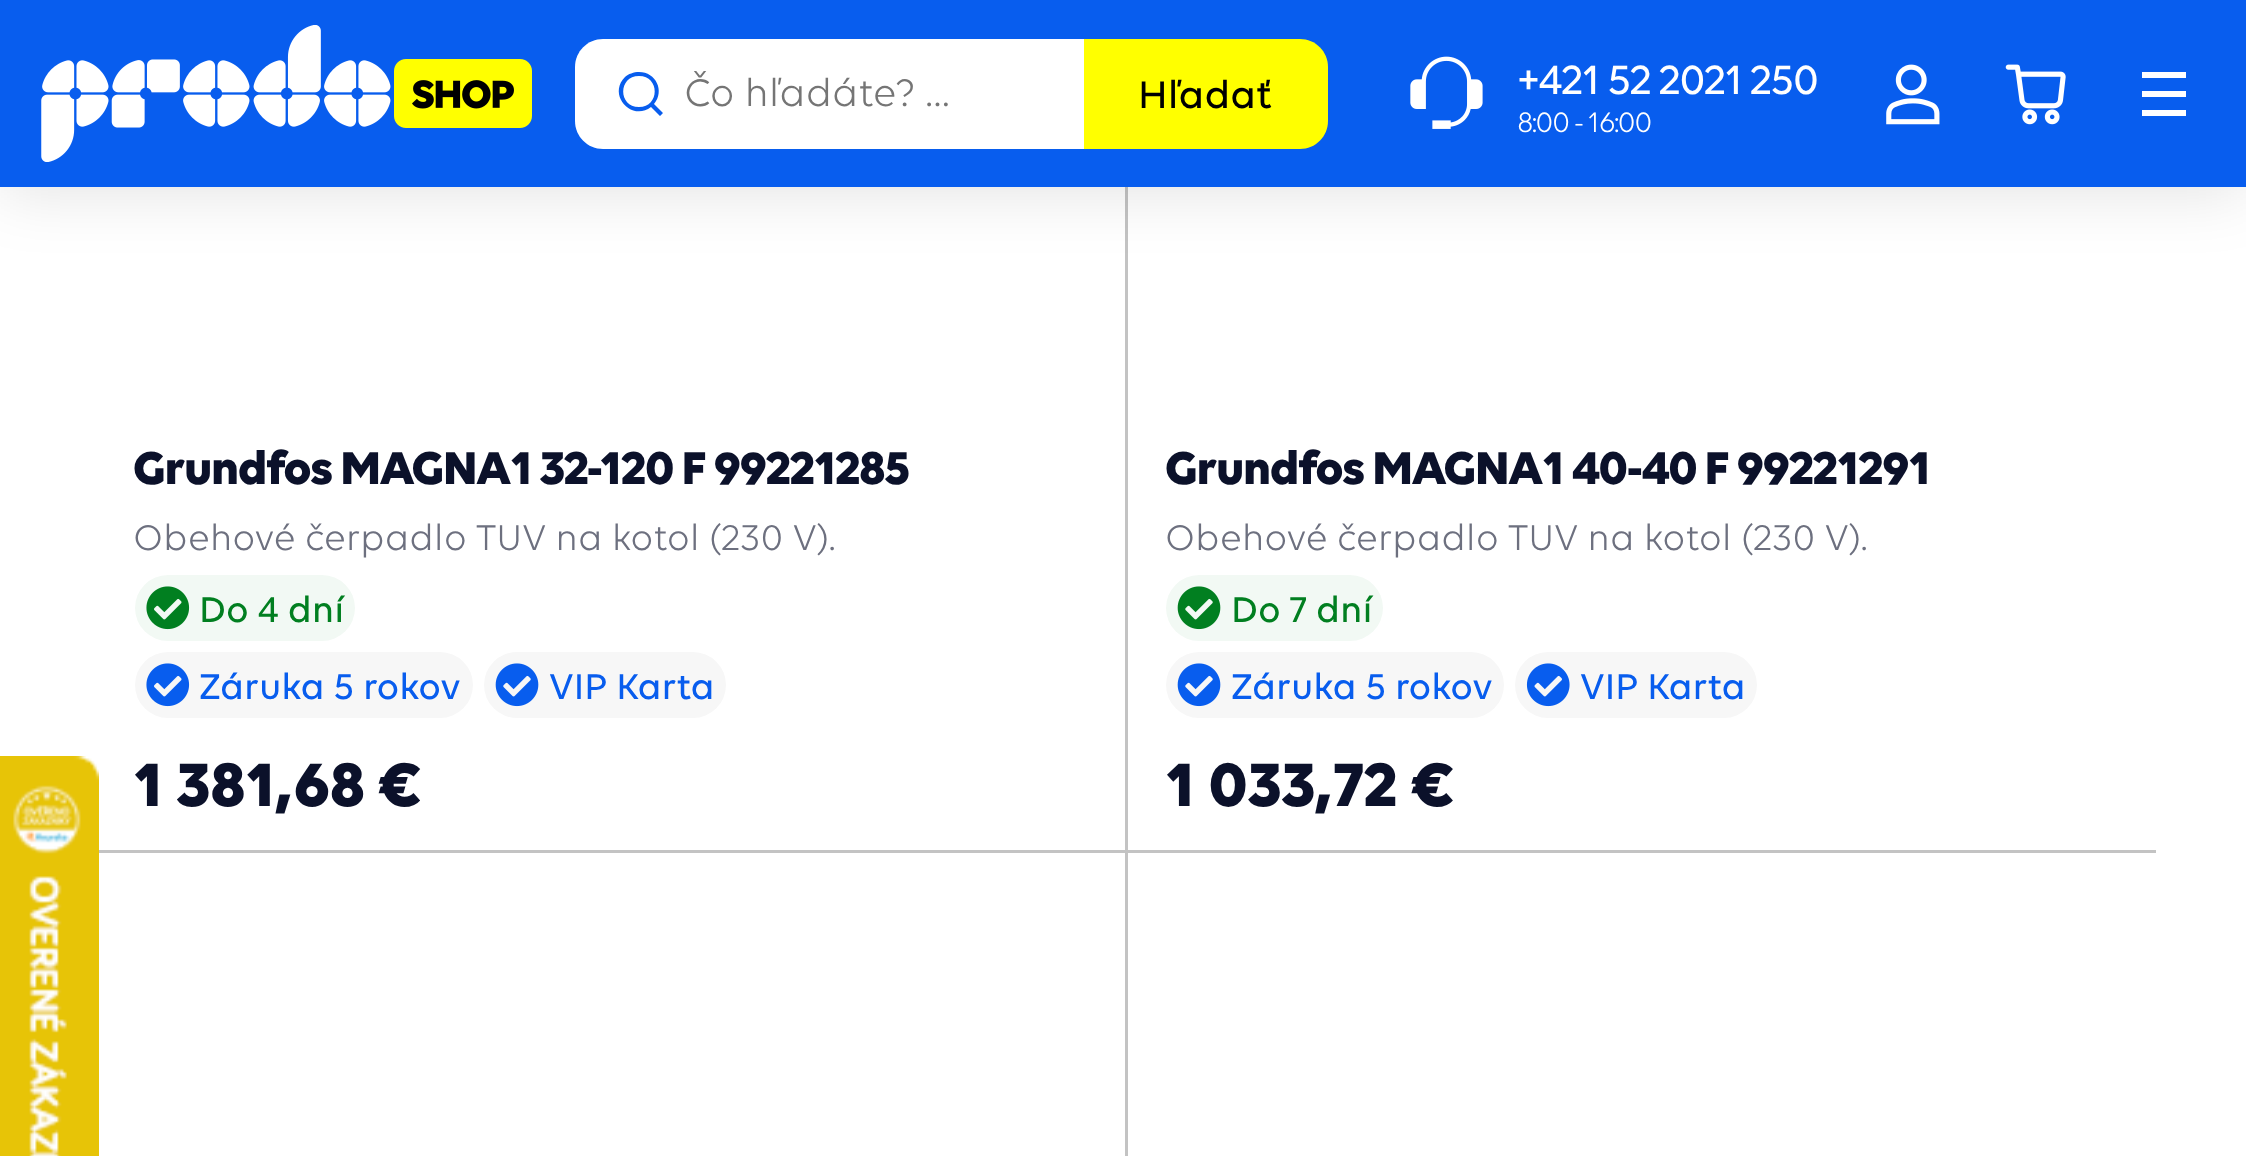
<svg xmlns="http://www.w3.org/2000/svg" width="2246" height="1156" viewBox="0 0 2246 1156">
  <defs>
    <clipPath id="clip1"><path d="M94 0h2062v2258H94z"/></clipPath>
  </defs>
  <rect width="100%" height="100%" fill="#fff"/>
  <path d="M96 850V853H1128V-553H1125V850Z" fill="#c3c3c3"/>
  <path d="M0 6h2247v187H0z" fill="#0000001c" filter="blur(31.5px)"/>
  <path d="M0 0h2246v187H0z" fill="#085dee"/>
  <image x="41" y="25" width="491" height="137" href="img/1.png"/>
  <path d="M603 39H1084V149H603C587.5 149 575 136.5 575 121V67C575 51.5 587.5 39 603 39Z" fill="#fff"/>
  <path d="M639 72C656 72 665 91 654 104L663 113L660 116L651 107C632 122 607 95 625 77C628 74 634 72 639 72ZM639 107C660 107 660 76 639 76C618 76 618 107 639 107Z" fill="#085dee"/>
  <path d="M1084 39H1300C1315.5 39 1328 51.5 1328 67V121C1328 136.5 1315.5 149 1300 149H1084Z" fill="#ff0"/>
  <image x="1410" y="56" width="73" height="73" href="img/2.png"/>
  <image x="1886" y="64" width="54" height="61" href="img/3.png"/>
  <image x="2005" y="64" width="61" height="61" href="img/4.png"/>
  <path d="M2142 72h44v6H2142z" fill="#fff"/>
  <path d="M2142 91h44v6H2142z" fill="#fff"/>
  <path d="M2142 110h44v6H2142z" fill="#fff"/>
  <rect x="135" y="575" width="220" height="66" rx="33" fill="#f2f9f4"/>
  <image x="146" y="586" width="44" height="44" href="img/5.png"/>
  <rect x="135" y="652" width="338" height="66" rx="33" fill="#f7f7f7"/>
  <image x="146" y="663" width="44" height="44" href="img/6.png"/>
  <rect x="484" y="652" width="242" height="66" rx="33" fill="#f7f7f7"/>
  <image x="495" y="663" width="44" height="44" href="img/7.png"/>
  <g clip-path="url(#clip1)">
    <path d="M1128 850V853H2159V-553H2156V850Z" fill="#c3c3c3"/>
  </g>
  <rect x="1166" y="575" width="217" height="66" rx="33" fill="#f2f9f4"/>
  <image x="1177" y="586" width="44" height="44" href="img/8.png"/>
  <rect x="1166" y="652" width="338" height="66" rx="33" fill="#f7f7f7"/>
  <image x="1177" y="663" width="44" height="44" href="img/7.png"/>
  <rect x="1515" y="652" width="242" height="66" rx="33" fill="#f7f7f7"/>
  <image x="1526" y="663" width="44" height="44" href="img/9.png"/>
  <path d="M96 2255V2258H1128V853H1125V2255Z" fill="#c3c3c3"/>
  <image x="0" y="756" width="99" height="400" href="img/10.png"/>
  <text x="684" y="106" font-family="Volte" font-size="41.25" fill="#757575">Čo hľadáte? …</text>
  <text x="1138" y="108" font-family="Volte" font-size="41.25" font-weight="500" fill="#000">Hľadať</text>
  <text x="1517" y="94" font-family="Volte" font-size="44" font-weight="500" letter-spacing="-1.6" fill="#fff">+421 52 2021 250</text>
  <text x="1517" y="132" font-family="Volte" font-size="30.25" letter-spacing="-1.6" fill="#fff">8:00 - 16:00</text>
  <text x="133" y="484" font-family="Volte" font-size="49.5" font-weight="bold" letter-spacing="-1.4" fill="#0b112a">Grundfos MAGNA1 32-120 F 99221285</text>
  <text x="133" y="550" font-family="Volte" font-size="38.5" fill="#6d707f">Obehové čerpadlo TUV na kotol (230 V).</text>
  <text x="199" y="622" font-family="Volte" font-size="38.5" font-weight="500" fill="#017f20">Do 4 dní</text>
  <g font-family="Volte" font-size="38.5" font-weight="500" fill="#085dee">
    <text x="199" y="699">Záruka 5 rokov</text>
    <text x="549" y="699">VIP Karta</text>
  </g>
  <text x="133" y="806" font-family="Volte" font-size="66" font-weight="bold" fill="#0b112a">1 381,68 €</text>
  <text x="1165" y="484" font-family="Volte" font-size="49.5" font-weight="bold" letter-spacing="-1.4" fill="#0b112a">Grundfos MAGNA1 40-40 F 99221291</text>
  <text x="1165" y="550" font-family="Volte" font-size="38.5" fill="#6d707f">Obehové čerpadlo TUV na kotol (230 V).</text>
  <text x="1231" y="622" font-family="Volte" font-size="38.5" font-weight="500" fill="#017f20">Do 7 dní</text>
  <g font-family="Volte" font-size="38.5" font-weight="500" fill="#085dee">
    <text x="1231" y="699">Záruka 5 rokov</text>
    <text x="1580" y="699">VIP Karta</text>
  </g>
  <text x="1165" y="806" font-family="Volte" font-size="66" font-weight="bold" fill="#0b112a">1 033,72 €</text>
</svg>
